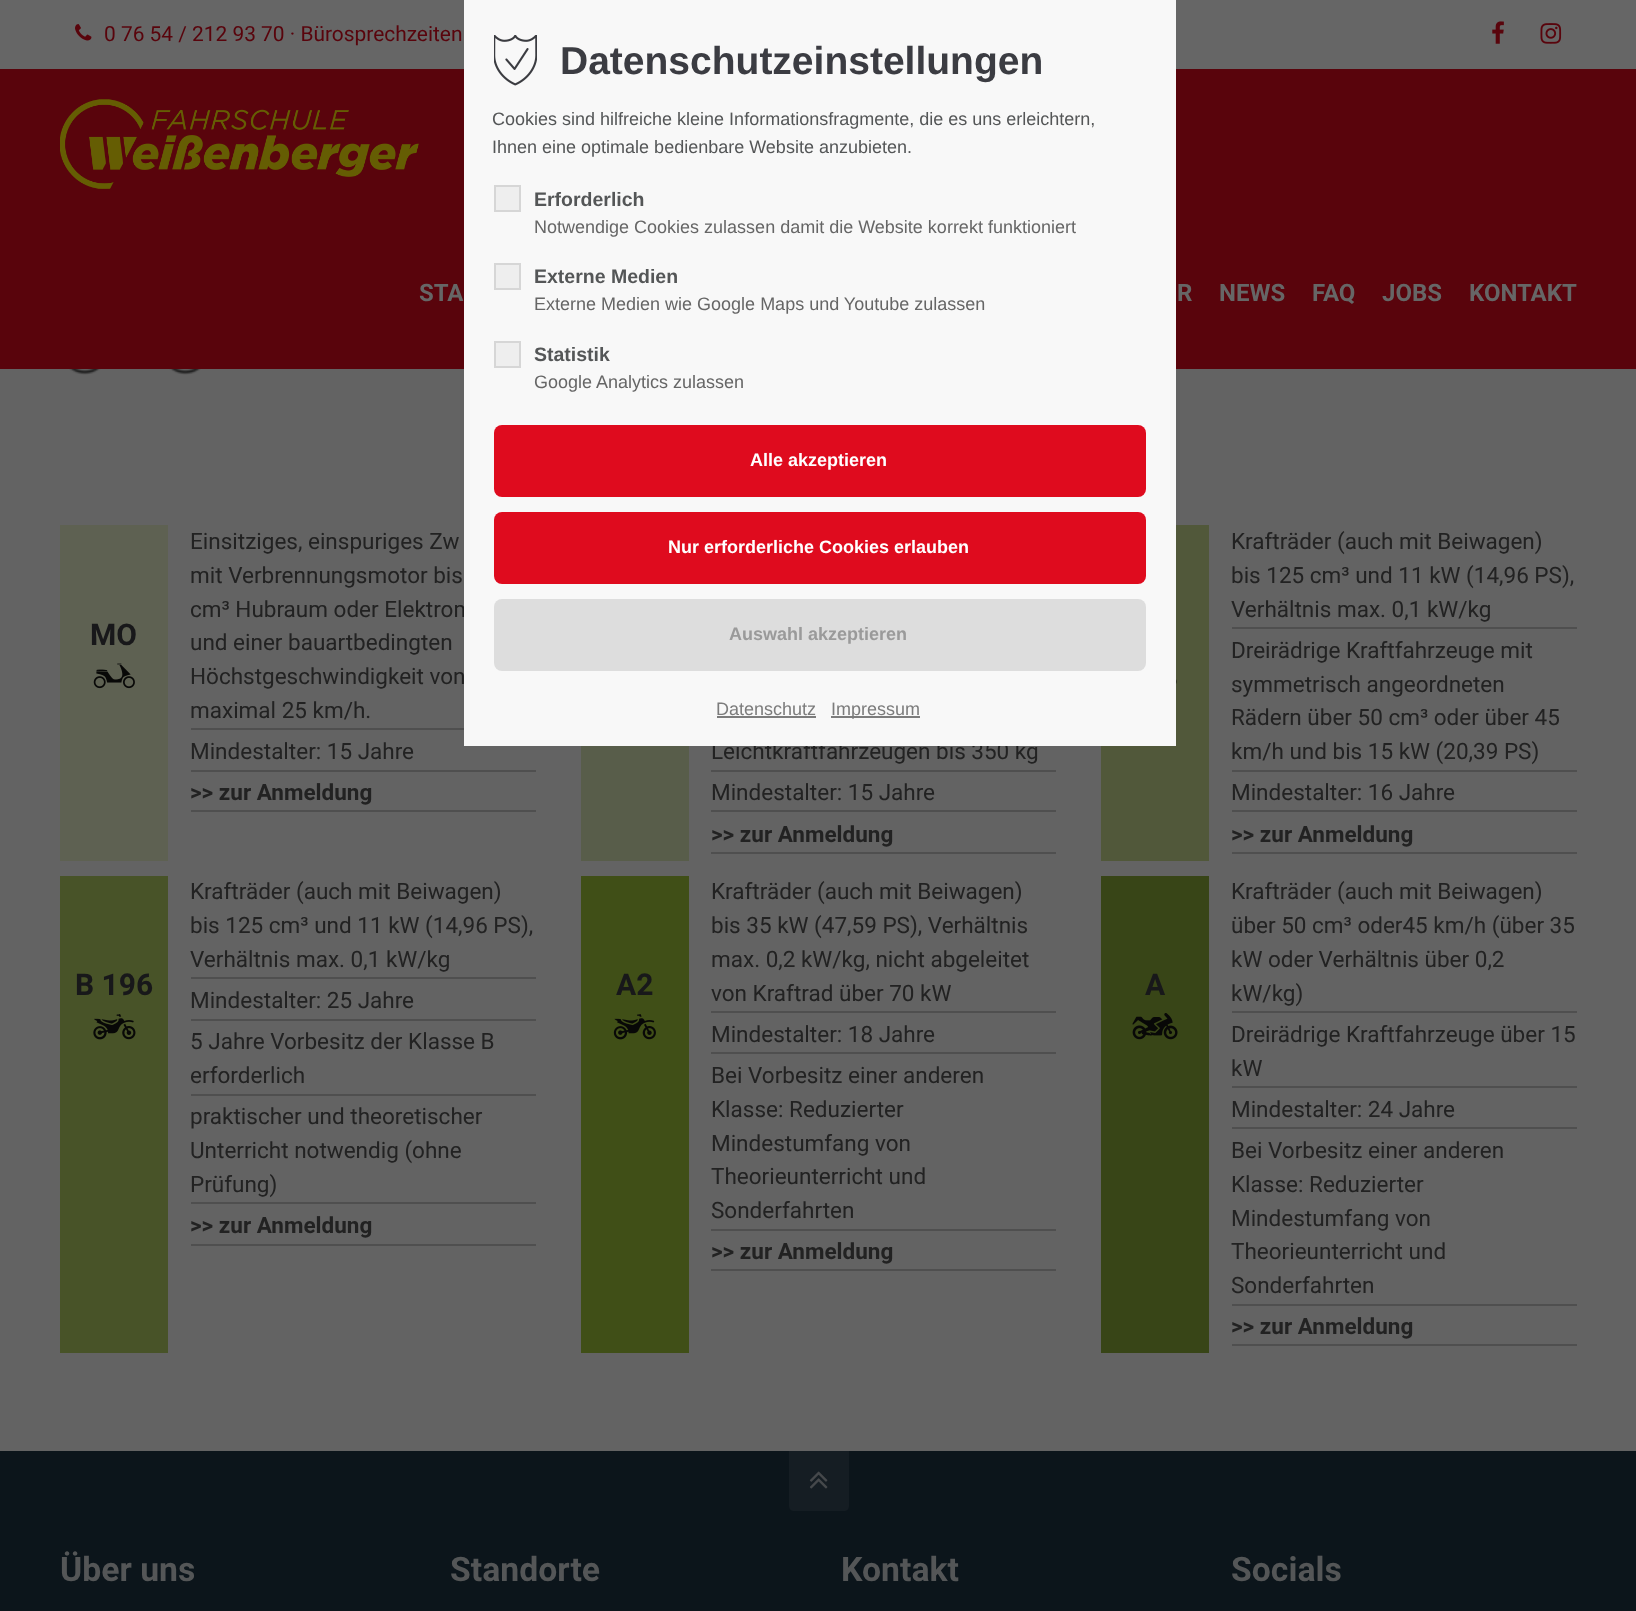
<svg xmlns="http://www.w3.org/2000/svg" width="1636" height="1611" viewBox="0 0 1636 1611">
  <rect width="100%" height="100%" fill="#0c151b"/>
  <path d="M0 0h1636v69H0z" fill="#666"/>
  <image x="75" y="24" width="17" height="17" href="img/1.png"/>
  <image x="1492" y="21" width="12" height="23" href="img/2.png"/>
  <image x="1540" y="23" width="22" height="21" href="img/3.png"/>
  <path d="M0 69h1636v300H0z" fill="#59040c"/>
  <image x="60" y="99" width="359" height="90" href="img/4.png"/>
  <path d="M0 369h1636v1082H0z" fill="#636363"/>
  <image x="69" y="369" width="132" height="6" href="img/5.png"/>
  <path d="M60 525h108v336H60z" fill="#5e6152"/>
  <image x="93" y="663" width="42" height="26" href="img/6.png"/>
  <path d="M191 728h273v2H191z" fill="#4f4f4f"/>
  <path d="M191 770h345v2H191z" fill="#4f4f4f"/>
  <path d="M191 810h345v2H191z" fill="#4f4f4f"/>
  <path d="M1101 525h108v336H1101z" fill="#51583a"/>
  <image x="1176" y="679" width="1" height="5" href="img/7.png"/>
  <path d="M1232 627h345v2H1232z" fill="#4f4f4f"/>
  <path d="M1232 770h345v2H1232z" fill="#4f4f4f"/>
  <path d="M1232 810h345v2H1232z" fill="#4f4f4f"/>
  <path d="M1232 852h345v2H1232z" fill="#4f4f4f"/>
  <path d="M581 746h108v115H581z" fill="#585d4a"/>
  <path d="M711 770h345v2H711z" fill="#4f4f4f"/>
  <path d="M711 810h345v2H711z" fill="#4f4f4f"/>
  <path d="M711 852h345v2H711z" fill="#4f4f4f"/>
  <path d="M60 876h108v477H60z" fill="#485328"/>
  <image x="93" y="1014" width="43" height="26" href="img/8.png"/>
  <path d="M191 977h345v2H191z" fill="#4f4f4f"/>
  <path d="M191 1019h345v2H191z" fill="#4f4f4f"/>
  <path d="M191 1094h345v2H191z" fill="#4f4f4f"/>
  <path d="M191 1202h345v2H191z" fill="#4f4f4f"/>
  <path d="M191 1244h345v2H191z" fill="#4f4f4f"/>
  <path d="M581 876h108v477H581z" fill="#404f17"/>
  <image x="613" y="1014" width="43" height="26" href="img/9.png"/>
  <path d="M711 1011h345v2H711z" fill="#4f4f4f"/>
  <path d="M711 1052h345v2H711z" fill="#4f4f4f"/>
  <path d="M711 1229h345v2H711z" fill="#4f4f4f"/>
  <path d="M711 1269h345v2H711z" fill="#4f4f4f"/>
  <path d="M1101 876h108v477H1101z" fill="#384517"/>
  <image x="1132" y="1013" width="46" height="27" href="img/10.png"/>
  <path d="M1232 1011h345v2H1232z" fill="#4f4f4f"/>
  <path d="M1232 1086h345v2H1232z" fill="#4f4f4f"/>
  <path d="M1232 1127h345v2H1232z" fill="#4f4f4f"/>
  <path d="M1232 1304h345v2H1232z" fill="#4f4f4f"/>
  <path d="M1232 1344h345v2H1232z" fill="#4f4f4f"/>
  <path d="M789 1451H849V1506C849 1509 847 1511 844 1511H794C791 1511 789 1509 789 1506Z" fill="#151d23"/>
  <image x="809" y="1471" width="19" height="18" href="img/11.png"/>
  <text x="104" y="41" font-family="Roboto" font-size="20.9" fill="#59040c">0 76 54 / 212 93 70 · Bürosprechzeiten</text>
  <g font-family="Roboto" font-size="24" font-weight="bold" fill="#666">
    <text x="419" y="301">STA</text>
    <text x="1177" y="301">R</text>
    <text x="1219" y="301">NEWS</text>
    <text x="1312" y="301">FAQ</text>
    <text x="1382" y="301">JOBS</text>
    <text x="1469" y="301">KONTAKT</text>
  </g>
  <text x="90" y="645" font-family="Roboto" font-size="30" font-weight="bold" fill="#18181a">MO</text>
  <g font-family="Roboto" font-size="22.5" fill="#222">
    <text x="190" y="549">Einsitziges, einspuriges Zw</text>
    <text x="190" y="583">mit Verbrennungsmotor bis</text>
    <text x="190" y="617">cm³ Hubraum oder Elektrom</text>
    <text x="190" y="650">und einer bauartbedingten</text>
    <text x="190" y="684">Höchstgeschwindigkeit von</text>
    <text x="190" y="718">maximal 25 km/h.</text>
    <text x="190" y="759">Mindestalter: 15 Jahre</text>
  </g>
  <text x="190" y="800" font-family="Roboto" font-size="22.5" font-weight="bold" fill="#222">&gt;&gt; zur Anmeldung</text>
  <g font-family="Roboto" font-size="22.5" fill="#222">
    <text x="1231" y="549">Krafträder (auch mit Beiwagen)</text>
    <text x="1231" y="583">bis 125 cm³ und 11 kW (14,96 PS),</text>
    <text x="1231" y="617">Verhältnis max. 0,1 kW/kg</text>
    <text x="1231" y="658">Dreirädrige Kraftfahrzeuge mit</text>
    <text x="1231" y="692">symmetrisch angeordneten</text>
    <text x="1231" y="725">Rädern über 50 cm³ oder über 45</text>
    <text x="1231" y="759">km/h und bis 15 kW (20,39 PS)</text>
    <text x="1231" y="800">Mindestalter: 16 Jahre</text>
  </g>
  <text x="1231" y="842" font-family="Roboto" font-size="22.5" font-weight="bold" fill="#222">&gt;&gt; zur Anmeldung</text>
  <g font-family="Roboto" font-size="22.5" fill="#222">
    <text x="711" y="759">Leichtkraftfahrzeugen bis 350 kg</text>
    <text x="711" y="800">Mindestalter: 15 Jahre</text>
  </g>
  <text x="711" y="842" font-family="Roboto" font-size="22.5" font-weight="bold" fill="#222">&gt;&gt; zur Anmeldung</text>
  <text x="75" y="995" font-family="Roboto" font-size="30" font-weight="bold" fill="#18181a">B 196</text>
  <g font-family="Roboto" font-size="22.5" fill="#222">
    <text x="190" y="899">Krafträder (auch mit Beiwagen)</text>
    <text x="190" y="933">bis 125 cm³ und 11 kW (14,96 PS),</text>
    <text x="190" y="967">Verhältnis max. 0,1 kW/kg</text>
    <text x="190" y="1008">Mindestalter: 25 Jahre</text>
    <text x="190" y="1049">5 Jahre Vorbesitz der Klasse B</text>
    <text x="190" y="1083">erforderlich</text>
    <text x="190" y="1124">praktischer und theoretischer</text>
    <text x="190" y="1158">Unterricht notwendig (ohne</text>
    <text x="190" y="1192">Prüfung)</text>
  </g>
  <text x="190" y="1233" font-family="Roboto" font-size="22.5" font-weight="bold" fill="#222">&gt;&gt; zur Anmeldung</text>
  <text x="616" y="995" font-family="Roboto" font-size="30" font-weight="bold" fill="#18181a">A2</text>
  <g font-family="Roboto" font-size="22.5" fill="#222">
    <text x="711" y="899">Krafträder (auch mit Beiwagen)</text>
    <text x="711" y="933">bis 35 kW (47,59 PS), Verhältnis</text>
    <text x="711" y="967">max. 0,2 kW/kg, nicht abgeleitet</text>
    <text x="711" y="1001">von Kraftrad über 70 kW</text>
    <text x="711" y="1042">Mindestalter: 18 Jahre</text>
    <text x="711" y="1083">Bei Vorbesitz einer anderen</text>
    <text x="711" y="1117">Klasse: Reduzierter</text>
    <text x="711" y="1151">Mindestumfang von</text>
    <text x="711" y="1184">Theorieunterricht und</text>
    <text x="711" y="1218">Sonderfahrten</text>
  </g>
  <text x="711" y="1259" font-family="Roboto" font-size="22.5" font-weight="bold" fill="#222">&gt;&gt; zur Anmeldung</text>
  <text x="1145" y="995" font-family="Roboto" font-size="30" font-weight="bold" fill="#18181a">A</text>
  <g font-family="Roboto" font-size="22.5" fill="#222">
    <text x="1231" y="899">Krafträder (auch mit Beiwagen)</text>
    <text x="1231" y="933">über 50 cm³ oder45 km/h (über 35</text>
    <text x="1231" y="967">kW oder Verhältnis über 0,2</text>
    <text x="1231" y="1001">kW/kg)</text>
    <text x="1231" y="1042">Dreirädrige Kraftfahrzeuge über 15</text>
    <text x="1231" y="1076">kW</text>
    <text x="1231" y="1117">Mindestalter: 24 Jahre</text>
    <text x="1231" y="1158">Bei Vorbesitz einer anderen</text>
    <text x="1231" y="1192">Klasse: Reduzierter</text>
    <text x="1231" y="1226">Mindestumfang von</text>
    <text x="1231" y="1259">Theorieunterricht und</text>
    <text x="1231" y="1293">Sonderfahrten</text>
  </g>
  <text x="1231" y="1334" font-family="Roboto" font-size="22.5" font-weight="bold" fill="#222">&gt;&gt; zur Anmeldung</text>
  <g font-family="Roboto" font-size="33.75" font-weight="bold" fill="#545657">
    <text x="60" y="1581">Über uns</text>
    <text x="450" y="1581">Standorte</text>
    <text x="841" y="1581">Kontakt</text>
    <text x="1231" y="1581">Socials</text>
  </g>
  <path d="M464 0h712v746H464z" fill="#f8f8f8"/>
  <image x="494" y="35" width="43" height="51" href="img/12.png"/>
  <text x="560" y="74" font-family="Liberation Sans" font-size="39" font-weight="bold" fill="#3b3c42">Datenschutzeinstellungen</text>
  <g font-family="Liberation Sans" font-size="18" fill="#545657">
    <text x="492" y="125">Cookies sind hilfreiche kleine Informationsfragmente, die es uns erleichtern,</text>
    <text x="492" y="153">Ihnen eine optimale bedienbare Website anzubieten.</text>
  </g>
  <path d="M495 186h25v25H495z" fill="#eee" stroke="#d6d6d6" stroke-width="2"/>
  <text x="534" y="206" font-family="Liberation Sans" font-size="19.5" font-weight="bold" fill="#545657">Erforderlich</text>
  <text x="534" y="233" font-family="Liberation Sans" font-size="18" fill="#666">Notwendige Cookies zulassen damit die Website korrekt funktioniert</text>
  <path d="M495 264h25v25H495z" fill="#eee" stroke="#d6d6d6" stroke-width="2"/>
  <text x="534" y="283" font-family="Liberation Sans" font-size="19.5" font-weight="bold" fill="#545657">Externe Medien</text>
  <text x="534" y="310" font-family="Liberation Sans" font-size="18" fill="#666">Externe Medien wie Google Maps und Youtube zulassen</text>
  <path d="M495 342h25v25H495z" fill="#eee" stroke="#d6d6d6" stroke-width="2"/>
  <text x="534" y="361" font-family="Liberation Sans" font-size="19.5" font-weight="bold" fill="#545657">Statistik</text>
  <text x="534" y="388" font-family="Liberation Sans" font-size="18" fill="#666">Google Analytics zulassen</text>
  <rect x="494" y="425" width="652" height="72" rx="8" fill="#df0b1e"/>
  <text x="750" y="466" font-family="Liberation Sans" font-size="18" font-weight="bold" fill="#fff">Alle akzeptieren</text>
  <rect x="494" y="512" width="652" height="72" rx="8" fill="#df0b1e"/>
  <text x="668" y="553" font-family="Liberation Sans" font-size="18" font-weight="bold" fill="#fff">Nur erforderliche Cookies erlauben</text>
  <rect x="494" y="599" width="652" height="72" rx="8" fill="#ddd"/>
  <text x="729" y="640" font-family="Liberation Sans" font-size="18" font-weight="bold" fill="#9a9a9a">Auswahl akzeptieren</text>
  <text x="716" y="715" font-family="Liberation Sans" font-size="18" fill="#7c7c7c">Datenschutz</text>
  <path d="M717 716h99v2H717z" fill="#7c7c7c"/>
  <path d="M831 716h89v2H831z" fill="#7c7c7c"/>
  <text x="831" y="715" font-family="Liberation Sans" font-size="18" fill="#7c7c7c">Impressum</text>
</svg>
